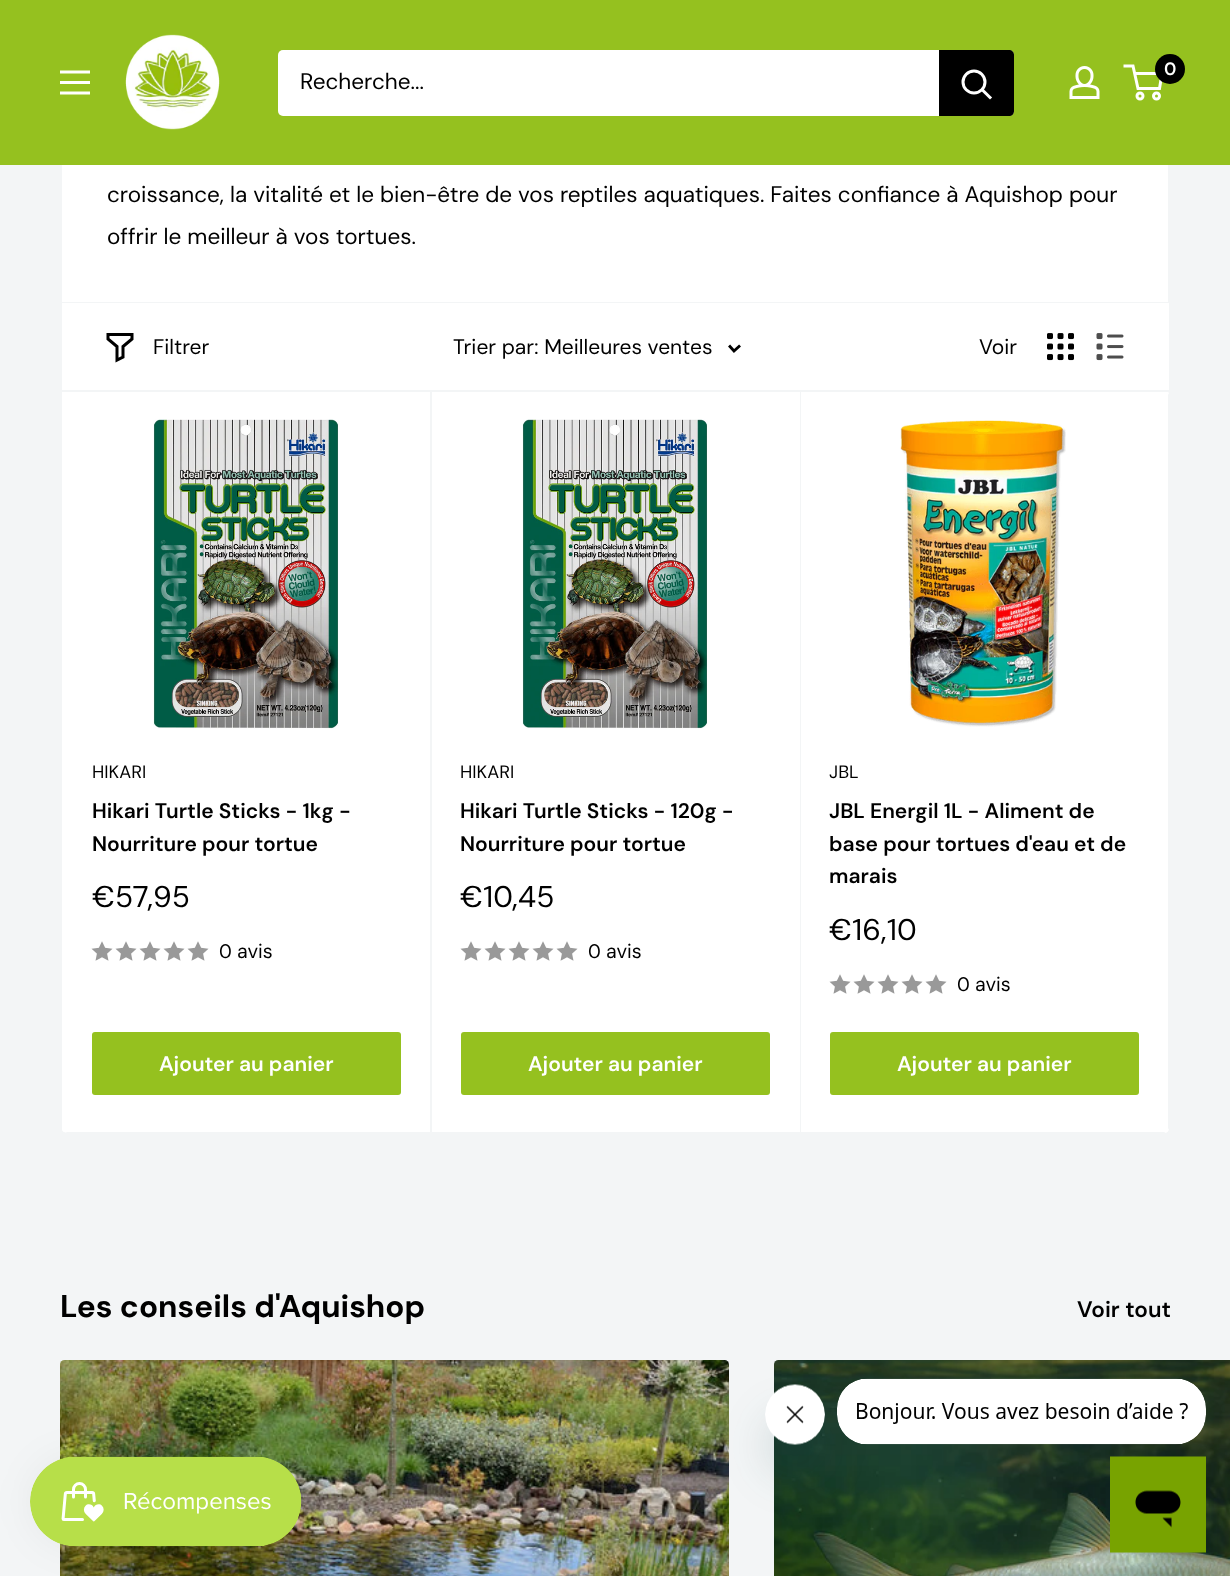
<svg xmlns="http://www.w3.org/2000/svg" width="1230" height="1576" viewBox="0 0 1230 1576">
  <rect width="100%" height="100%" fill="#f3f5f6"/>
  <rect x="61" y="-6" width="1108" height="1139" rx="4" fill="#fff" stroke="#f3f5f6" stroke-width="2"/>
  <path d="M0 0h1230v165H0z" fill="#95c11f"/>
  <image x="60" y="70" width="30" height="25" href="img/1.png"/>
  <image x="125" y="34" width="95" height="96" href="img/2.png"/>
  <rect x="278" y="50" width="736" height="66" rx="5" fill="#fff"/>
  <path d="M939 50H1009C1012 50 1014 52 1014 55V111C1014 114 1012 116 1009 116H939Z" fill="#000"/>
  <path d="M990 97.5L982.5 90" fill="none" stroke="#fff" stroke-width="3" stroke-linecap="square"/>
  <circle cx="974" cy="82" r="11" fill="none" stroke="#fff" stroke-width="3"/>
  <image x="1069" y="66" width="31" height="33" href="img/3.png"/>
  <circle cx="1140" cy="96" r="3" fill="none" stroke="#fff" stroke-width="3"/>
  <circle cx="1156.5" cy="96" r="3" fill="none" stroke="#fff" stroke-width="3"/>
  <path d="M1134.5 73.5H1162L1159.5 88.5H1138L1133 66H1123.5" fill="none" stroke="#fff" stroke-width="3"/>
  <circle cx="1170" cy="69" r="15" fill="#000"/>
  <path d="M62 302V303H1168V389H1169V302Z" fill="#f3f5f6"/>
  <rect x="62" y="390" width="1107" height="743" rx="5" fill="#fff"/>
  <image x="153" y="419" width="186" height="310" href="img/6.png"/>
  <image x="91" y="941" width="22" height="20" href="img/7.png"/>
  <image x="115" y="941" width="22" height="20" href="img/7.png"/>
  <image x="139" y="941" width="22" height="20" href="img/7.png"/>
  <image x="163" y="941" width="22" height="20" href="img/7.png"/>
  <image x="187" y="941" width="22" height="20" href="img/7.png"/>
  <rect x="92" y="1032" width="309" height="63" rx="3" fill="#95c11f"/>
  <image x="522" y="419" width="186" height="310" href="img/8.png"/>
  <image x="460" y="941" width="22" height="20" href="img/7.png"/>
  <image x="484" y="941" width="22" height="20" href="img/7.png"/>
  <image x="508" y="941" width="22" height="20" href="img/7.png"/>
  <image x="532" y="941" width="22" height="20" href="img/7.png"/>
  <image x="556" y="941" width="22" height="20" href="img/7.png"/>
  <rect x="461" y="1032" width="309" height="63" rx="3" fill="#95c11f"/>
  <path d="M800 390H1164C1167 390 1169 392 1169 395V1128C1169 1131 1167 1133 1164 1133H800Z" fill="#fff"/>
  <image x="900" y="420" width="166" height="307" href="img/9.png"/>
  <image x="829" y="974" width="22" height="20" href="img/7.png"/>
  <image x="853" y="974" width="22" height="20" href="img/7.png"/>
  <image x="877" y="974" width="22" height="20" href="img/7.png"/>
  <image x="901" y="974" width="22" height="20" href="img/7.png"/>
  <image x="925" y="974" width="22" height="20" href="img/7.png"/>
  <rect x="830" y="1032" width="309" height="63" rx="3" fill="#95c11f"/>
  <image x="60" y="1360" width="669" height="216" href="img/10.png"/>
  <image x="774" y="1360" width="456" height="216" href="img/11.png"/>
  <rect x="30" y="1457" width="272" height="90" rx="45" fill="#0000000d" filter="blur(19px)"/>
  <image x="30" y="1456" width="272" height="91" href="img/12.png"/>
  <rect x="765" y="1415" width="60" height="60" rx="30" fill="#17494d26" filter="blur(22.5px)"/>
  <image x="765" y="1384" width="60" height="61" href="img/13.png"/>
  <image x="837" y="1378" width="369" height="67" href="img/14.png"/>
  <path d="M1110 1487h96v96H1110z" fill="#17494d26" filter="blur(22.5px)"/>
  <image x="1110" y="1456" width="96" height="97" href="img/15.png"/>
  <text x="300" y="89" font-family="DM Sans" font-size="22.5" fill="#000">Recherche...</text>
  <text x="1164" y="75" font-family="'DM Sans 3'" font-size="18" font-weight="600" fill="#fff">0</text>
  <g font-family="DM Sans" font-size="22.5" fill="#000">
    <text x="107" y="202">croissance, la vitalité et le bien-être de vos reptiles aquatiques. Faites confiance à Aquishop pour</text>
    <text x="107" y="244">offrir le meilleur à vos tortues.</text>
  </g>
  <text x="92" y="778" font-family="'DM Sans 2'" font-size="18" fill="#000">HIKARI</text>
  <g font-family="'DM Sans 2'" font-size="21" font-weight="600" fill="#000">
    <text x="92" y="818">Hikari Turtle Sticks - 1kg -</text>
    <text x="92" y="851">Nourriture pour tortue</text>
  </g>
  <text x="92" y="907" font-family="'DM Sans 2'" font-size="30" fill="#000">€57,95</text>
  <text x="219" y="958" font-family="'DM Sans 2'" font-size="19.5" fill="#000">0 avis</text>
  <text x="159" y="1071" font-family="'DM Sans 2'" font-size="21" font-weight="600" fill="#fff">Ajouter au panier</text>
  <path d="M65 1132L67 1133H432V390H430V1132Z" fill="#f3f5f6"/>
  <path d="M431 1132V1133H800V392V1132Z" fill="#f3f5f6"/>
  <text x="460" y="778" font-family="'DM Sans 2'" font-size="18" fill="#000">HIKARI</text>
  <g font-family="'DM Sans 2'" font-size="21" font-weight="600" fill="#000">
    <text x="460" y="818">Hikari Turtle Sticks - 120g -</text>
    <text x="460" y="851">Nourriture pour tortue</text>
  </g>
  <text x="460" y="907" font-family="'DM Sans 2'" font-size="30" fill="#000">€10,45</text>
  <text x="588" y="958" font-family="'DM Sans 2'" font-size="19.5" fill="#000">0 avis</text>
  <text x="528" y="1071" font-family="'DM Sans 2'" font-size="21" font-weight="600" fill="#fff">Ajouter au panier</text>
  <path d="M432 1132V1133H801V390H800V1132Z" fill="#f3f5f6"/>
  <path d="M62 390V392H1169V305H1168V390Z" fill="#f3f5f6"/>
  <image x="1096" y="333" width="28" height="28" href="img/5.png"/>
  <path d="M739 346.5L734 351L730 346.5" fill="none" stroke="#000" stroke-width="2.8" stroke-linecap="square"/>
  <text x="453" y="354" font-family="'DM Sans 3'" font-size="21" fill="#000">Trier par: Meilleures ventes</text>
  <image x="1047" y="333" width="27" height="28" href="img/4.png"/>
  <path d="M132 339L123 346.5V357L117 360V346.5L108 339V334.5H132Z" fill="none" stroke="#000" stroke-width="3" stroke-linecap="square"/>
  <g font-family="'DM Sans 3'" font-size="21" fill="#000">
    <text x="979" y="354">Voir</text>
    <text x="153" y="354">Filtrer</text>
  </g>
  <path d="M1168 303h1v87H1168z" fill="#fff"/>
  <text x="829" y="778" font-family="'DM Sans 2'" font-size="18" fill="#000">JBL</text>
  <g font-family="'DM Sans 2'" font-size="21" font-weight="600" fill="#000">
    <text x="829" y="818">JBL Energil 1L - Aliment de</text>
    <text x="829" y="851">base pour tortues d'eau et de</text>
    <text x="829" y="883">marais</text>
  </g>
  <text x="829" y="940" font-family="'DM Sans 2'" font-size="30" fill="#000">€16,10</text>
  <text x="957" y="991" font-family="'DM Sans 2'" font-size="19.5" fill="#000">0 avis</text>
  <text x="897" y="1071" font-family="'DM Sans 2'" font-size="21" font-weight="600" fill="#fff">Ajouter au panier</text>
  <path d="M800 1132V1133H1164L1166 1132ZM1168 1130L1169 1128V395L1168 393Z" fill="#f3f5f6" fill-rule="evenodd"/>
  <text x="60" y="1317" font-family="DM Sans" font-size="31.5" font-weight="bold" fill="#000">Les conseils d'Aquishop</text>
  <text x="1077" y="1317" font-family="DM Sans" font-size="22.5" font-weight="600" fill="#000">Voir tout</text>
</svg>
